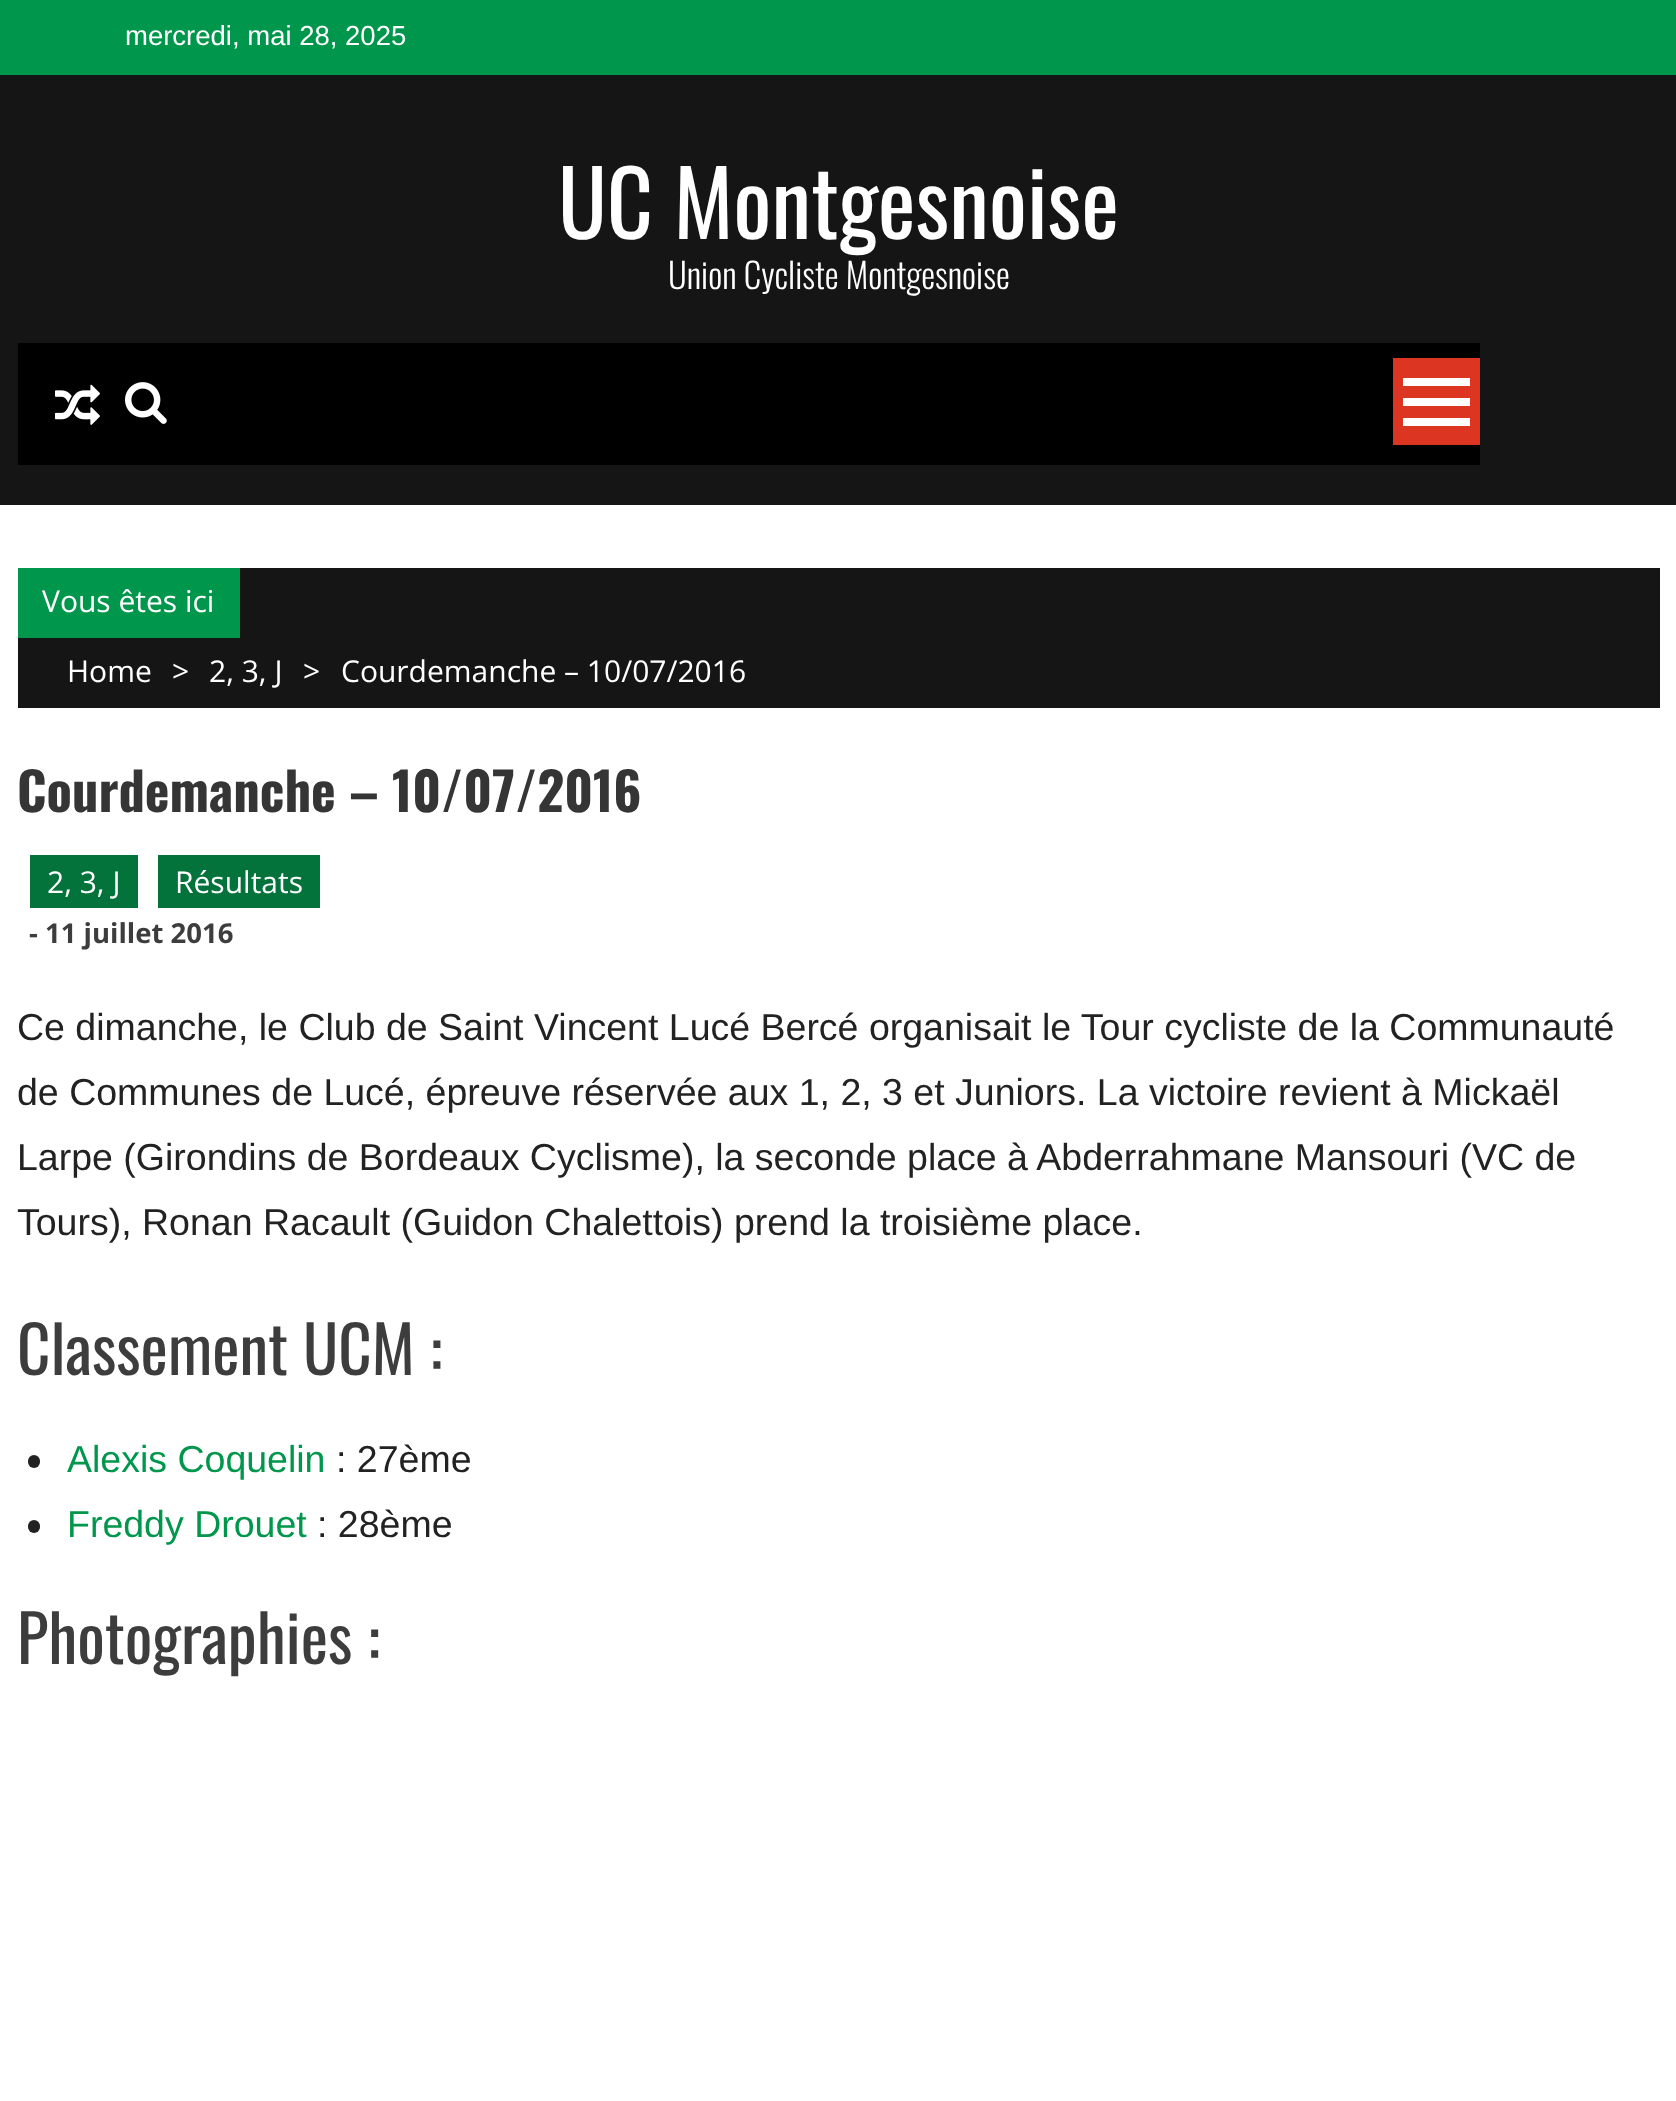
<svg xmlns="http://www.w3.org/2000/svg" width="1676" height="2101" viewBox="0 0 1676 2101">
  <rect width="100%" height="100%" fill="#fff"/>
  <path d="M0 0h1676v75H0z" fill="#00964c"/>
  <path d="M0 75h1676v430H0z" fill="#151515"/>
  <path d="M18 343h1462v122H18z" fill="#000"/>
  <path d="M1393 358h87v87H1393z" fill="#dc3522"/>
  <path d="M1403 378h67v8H1403z" fill="#fff"/>
  <path d="M1403 398h67v8H1403z" fill="#fff"/>
  <path d="M1403 418h67v8H1403z" fill="#fff"/>
  <image x="55" y="384" width="45" height="41" href="img/1.png"/>
  <image x="125" y="382" width="42" height="42" href="img/2.png"/>
  <path d="M18 568h1642v140H18z" fill="#151515"/>
  <path d="M18 568h222v70H18z" fill="#00964c"/>
  <path d="M30 855h108v53H30z" fill="#03723b"/>
  <path d="M158 855h162v53H158z" fill="#03723b"/>
  <rect x="28" y="1455" width="12" height="13" rx="6" fill="#222"/>
  <rect x="28" y="1520" width="12" height="13" rx="6" fill="#222"/>
  <text x="125" y="45" font-family="Liberation Sans" font-size="27.5" fill="#fff">mercredi, mai 28, 2025</text>
  <text x="558" y="239" font-family="Oswald" font-size="90" fill="#fff">UC Montgesnoise</text>
  <text x="668" y="289" font-family="Oswald" font-size="35" font-weight="300" fill="#fff">Union Cycliste Montgesnoise</text>
  <g font-family="Open Sans" font-size="30" fill="#fff">
    <text x="42" y="612">Vous êtes ici</text>
    <text x="67" y="682">Home</text>
    <text x="172" y="682">&gt;</text>
    <text x="209" y="682">2, 3, J</text>
    <text x="303" y="682">&gt;</text>
    <text x="341" y="682">Courdemanche – 10/07/2016</text>
  </g>
  <text x="17" y="812" font-family="Oswald" font-size="52.5" font-weight="bold" fill="#353535">Courdemanche – 10/07/2016</text>
  <g font-family="Open Sans" font-size="30" fill="#fff">
    <text x="47" y="893">2, 3, J</text>
    <text x="175" y="893">Résultats</text>
  </g>
  <text x="29" y="943" font-family="Open Sans" font-size="27.5" font-weight="bold" fill="#3d3d3d">- 11 juillet 2016</text>
  <g font-family="Liberation Sans" font-size="37.5" fill="#222">
    <text x="17" y="1040">Ce dimanche, le Club de Saint Vincent Lucé Bercé organisait le Tour cycliste de la Communauté</text>
    <text x="17" y="1105">de Communes de Lucé, épreuve réservée aux 1, 2, 3 et Juniors. La victoire revient à Mickaël</text>
    <text x="17" y="1170">Larpe (Girondins de Bordeaux Cyclisme), la seconde place à Abderrahmane Mansouri (VC de</text>
    <text x="17" y="1235">Tours), Ronan Racault (Guidon Chalettois) prend la troisième place.</text>
  </g>
  <text x="17" y="1375" font-family="Oswald" font-size="65" fill="#3d3d3d">Classement UCM :</text>
  <text x="67" y="1472" font-family="Liberation Sans" font-size="37.5" fill="#00964c">Alexis Coquelin</text>
  <text x="336" y="1472" font-family="Liberation Sans" font-size="37.5" fill="#222">: 27ème</text>
  <text x="67" y="1537" font-family="Liberation Sans" font-size="37.5" fill="#00964c">Freddy Drouet</text>
  <text x="317" y="1537" font-family="Liberation Sans" font-size="37.5" fill="#222">: 28ème</text>
  <text x="17" y="1664" font-family="Oswald" font-size="65" fill="#3d3d3d">Photographies :</text>
</svg>
